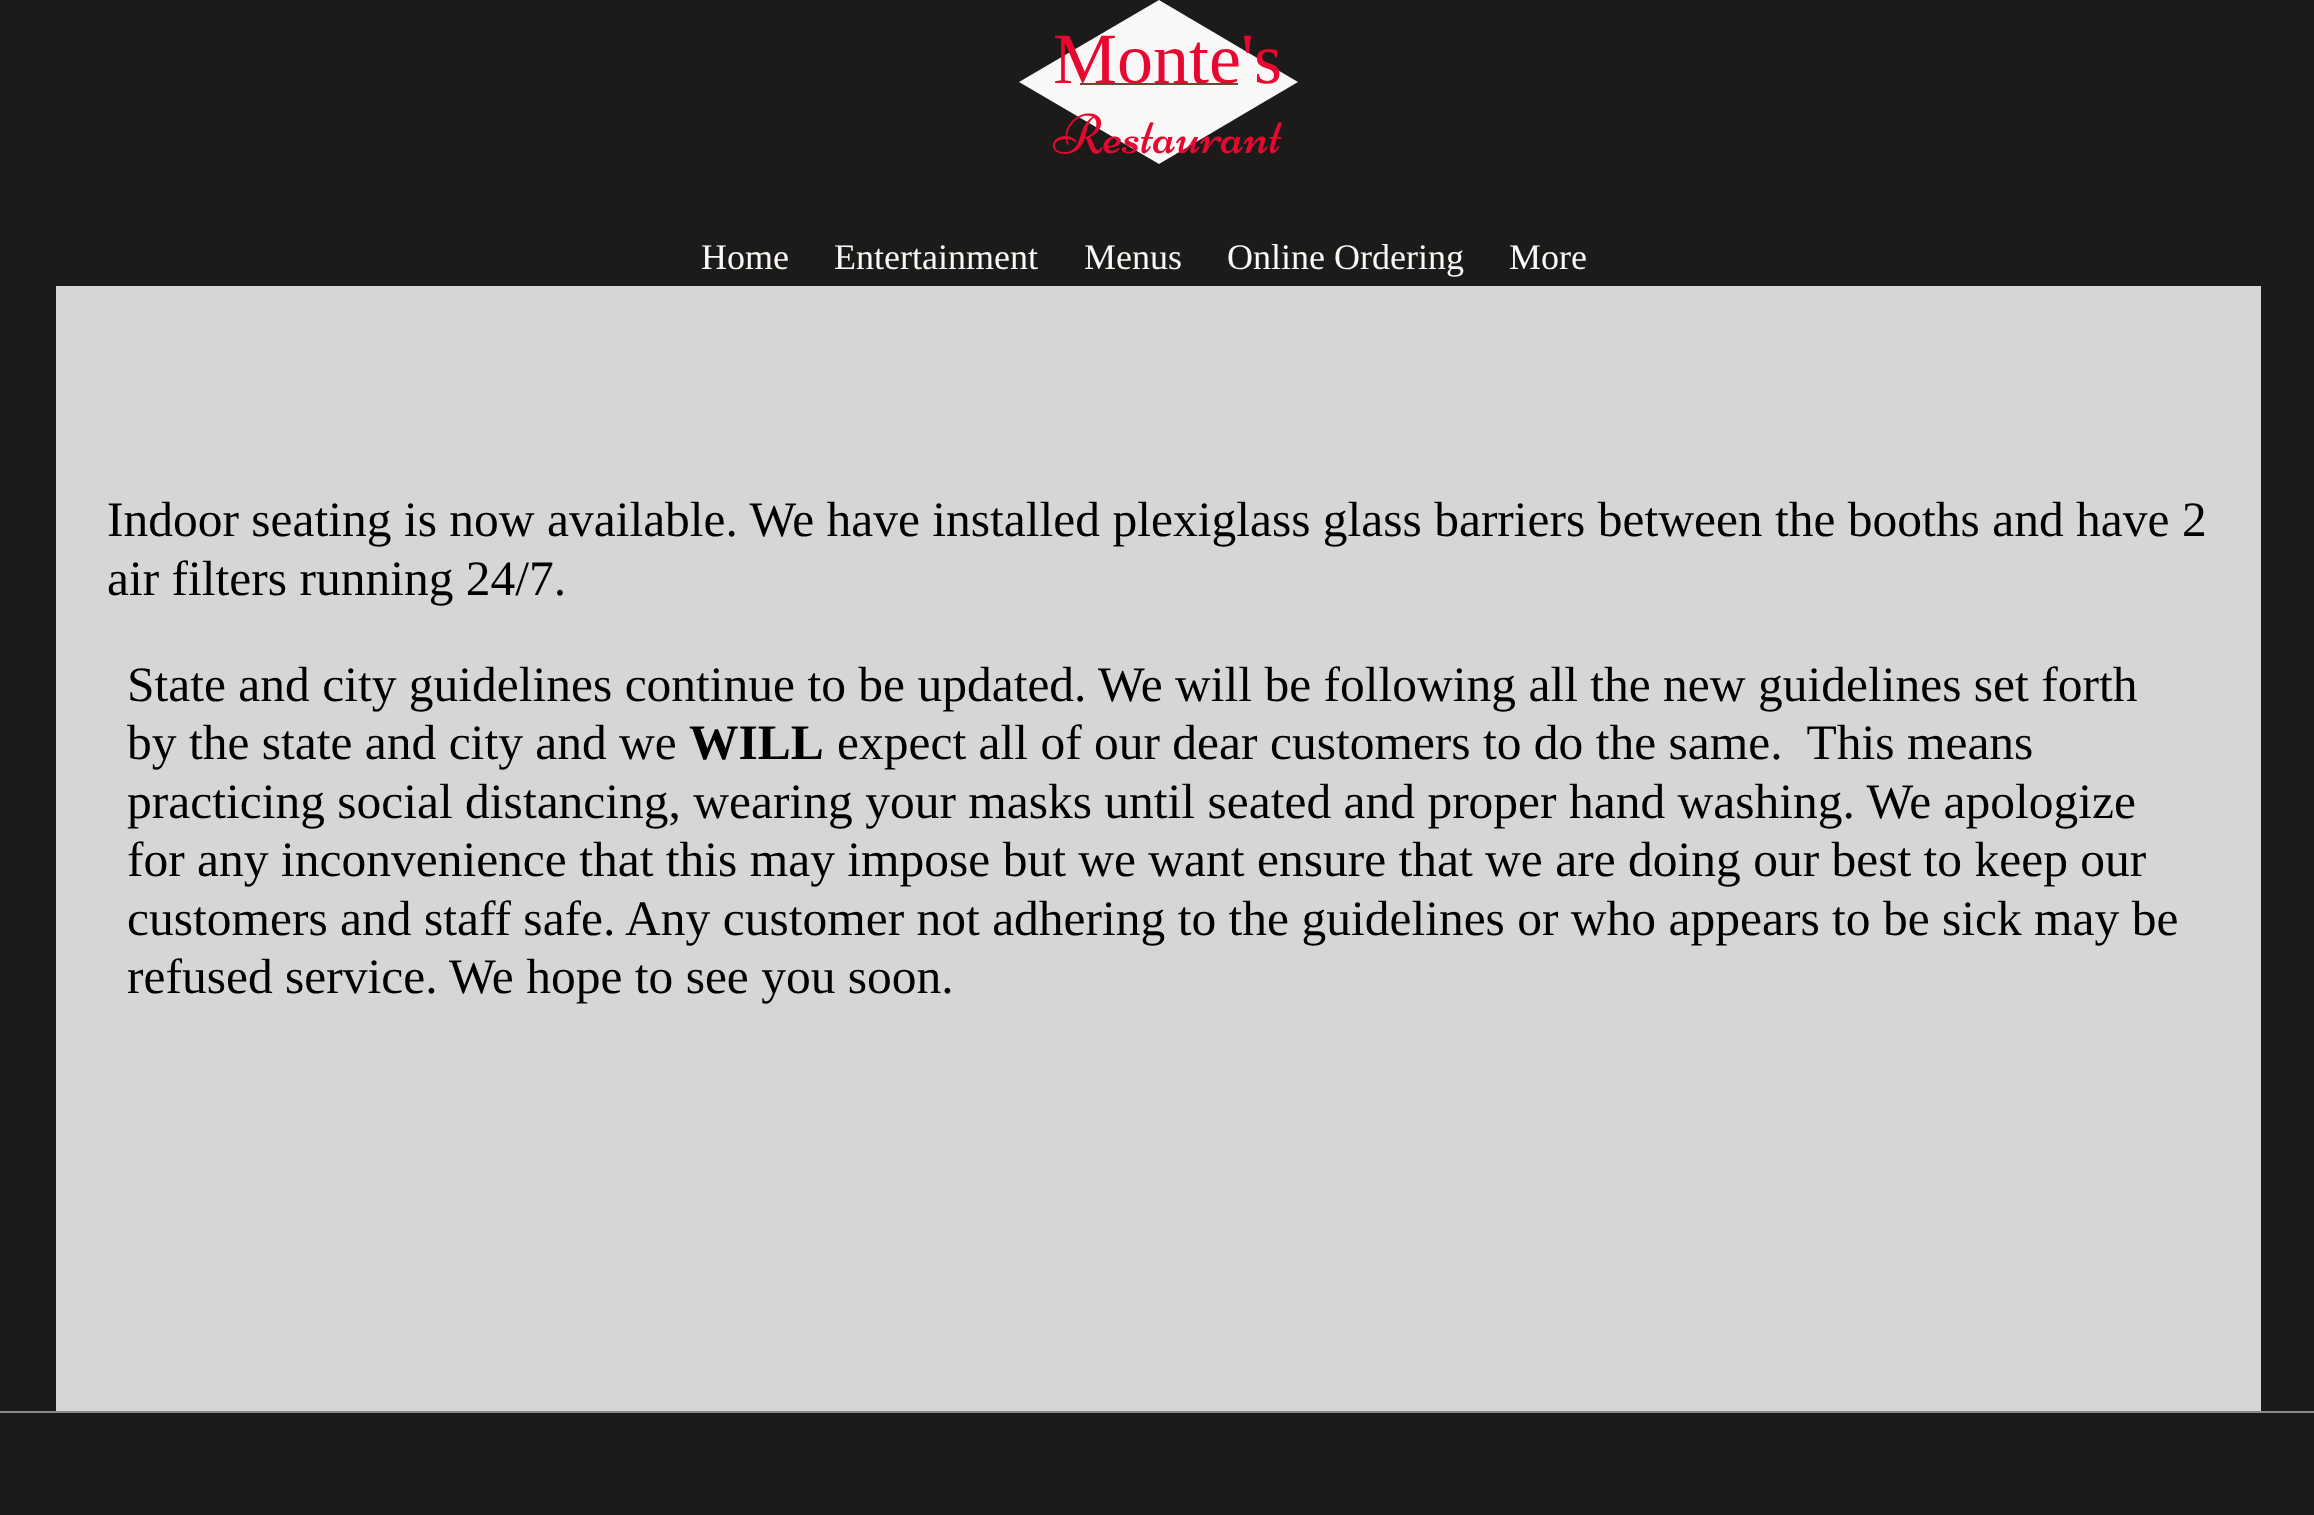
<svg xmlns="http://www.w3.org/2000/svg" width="2314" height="1515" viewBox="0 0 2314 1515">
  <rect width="100%" height="100%" fill="#1d1b19"/>
  <path d="M1298 82L1159 164L1019 82L1159 0Z" fill="#f9f8f6"/>
  <image x="1053" y="113" width="229" height="41" href="img/1.png"/>
  <path d="M56 286h2205v1125H56z" fill="#d6d6d6"/>
  <path d="M0 1411h2314v2H0z" fill="#8b8a88"/>
  <text x="1053" y="83" font-family="Liberation Serif" font-size="72" fill="#e80730">Monte's</text>
  <path d="M1080 83h158v2H1080z" fill="#664b31"/>
  <g font-family="Liberation Serif" font-size="36" fill="#f9f8f6">
    <text x="701" y="269">Home</text>
    <text x="834" y="269">Entertainment</text>
    <text x="1084" y="269">Menus</text>
    <text x="1227" y="269">Online Ordering</text>
    <text x="1509" y="269">More</text>
  </g>
  <g font-family="Liberation Serif" font-size="49.5" fill="#000">
    <text x="107" y="536">Indoor seating is now available. We have installed plexiglass glass barriers between the booths and have 2</text>
    <text x="107" y="595">air filters running 24/7.</text>
    <text x="127" y="701">State and city guidelines continue to be updated. We will be following all the new guidelines set forth</text>
    <text x="127" y="759">by the state and city and we</text>
  </g>
  <text x="689" y="759" font-family="Liberation Serif" font-size="49.5" font-weight="bold" fill="#000">WILL</text>
  <g font-family="Liberation Serif" font-size="49.5" fill="#000">
    <text x="837" y="759" xml:space="preserve">expect all of our dear customers to do the same.  This means</text>
    <text x="127" y="818">practicing social distancing, wearing your masks until seated and proper hand washing. We apologize</text>
    <text x="127" y="876">for any inconvenience that this may impose but we want ensure that we are doing our best to keep our</text>
    <text x="127" y="935">customers and staff safe. Any customer not adhering to the guidelines or who appears to be sick may be</text>
    <text x="127" y="993">refused service. We hope to see you soon.</text>
  </g>
</svg>
